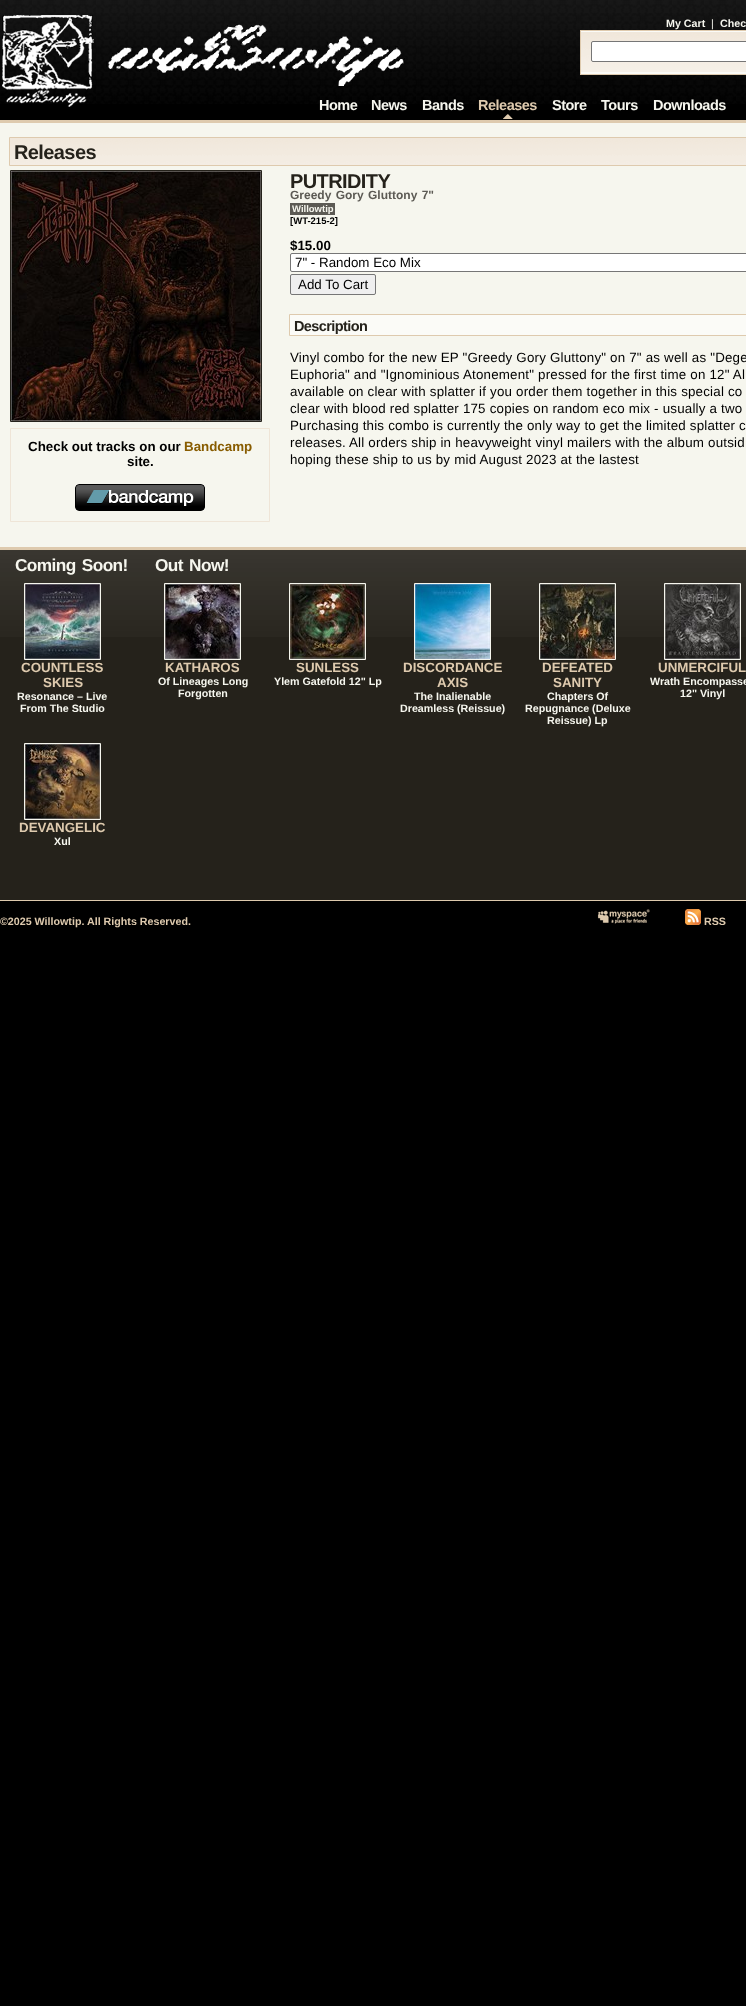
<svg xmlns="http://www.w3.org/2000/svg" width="746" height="2006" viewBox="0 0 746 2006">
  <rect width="100%" height="100%" fill="#000"/>
  <image x="0" y="0" width="746" height="104" href="img/1.png"/>
  <path d="M0 120h746v3H0z" fill="#decaae"/>
  <image x="2" y="15" width="403" height="92" href="img/2.png"/>
  <path d="M581 31h165v43H581z" fill="#fbfbf7"/>
  <image x="581" y="32" width="165" height="40" href="img/3.png"/>
  <path d="M580 30h166v1H580z" fill="#decaae"/>
  <path d="M580 74h166v1H580z" fill="#decaae"/>
  <path d="M580 30h1v45H580z" fill="#decaae"/>
  <rect x="591.5" y="41.5" width="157" height="20" rx="1.5" fill="#fff" stroke="#767676"/>
  <image x="503" y="114" width="10" height="5" href="img/4.png"/>
  <path d="M0 123h746v424H0z" fill="#f6f6ee"/>
  <image x="10" y="138" width="736" height="27" href="img/5.png"/>
  <path d="M9.5 137.5h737v28H9.5z" fill="none" stroke="#decaae"/>
  <path d="M10.5 170.5h251v251H10.5z" fill="none" stroke="#25221b"/>
  <image x="11" y="171" width="250" height="250" href="img/6.png"/>
  <path d="M10.5 428.5h259v93H10.5z" fill="none" stroke="#efe5d7"/>
  <image x="75" y="484" width="130" height="27" href="img/7.png"/>
  <path d="M290 203h45v12H290z" fill="#5c5a54"/>
  <rect x="290.5" y="253.5" width="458" height="18" rx="1.5" fill="#fff" stroke="#767676"/>
  <rect x="290.5" y="274.5" width="85" height="20" rx="1.5" fill="#efefef" stroke="#767676"/>
  <path d="M289.5 314.5h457v21H289.5z" fill="#fbfbf7" stroke="#decaae"/>
  <path d="M0 637h746v263H0z" fill="#25221b"/>
  <image x="0" y="550" width="746" height="87" href="img/8.png"/>
  <path d="M0 547h746v3H0z" fill="#decaae"/>
  <path d="M24.5 583.5h76v76H24.5z" fill="none" stroke="#f6f6ee"/>
  <image x="25" y="584" width="75" height="75" href="img/9.png"/>
  <path d="M24.5 743.5h76v76H24.5z" fill="none" stroke="#f6f6ee"/>
  <image x="25" y="744" width="75" height="75" href="img/10.png"/>
  <path d="M164.5 583.5h76v76H164.5z" fill="none" stroke="#f6f6ee"/>
  <image x="165" y="584" width="75" height="75" href="img/11.png"/>
  <path d="M289.5 583.5h76v76H289.5z" fill="none" stroke="#f6f6ee"/>
  <image x="290" y="584" width="75" height="75" href="img/12.png"/>
  <path d="M414.5 583.5h76v76H414.5z" fill="none" stroke="#f6f6ee"/>
  <image x="415" y="584" width="75" height="75" href="img/13.png"/>
  <path d="M539.5 583.5h76v76H539.5z" fill="none" stroke="#f6f6ee"/>
  <image x="540" y="584" width="75" height="75" href="img/14.png"/>
  <path d="M664.5 583.5h76v76H664.5z" fill="none" stroke="#f6f6ee"/>
  <image x="665" y="584" width="75" height="75" href="img/15.png"/>
  <path d="M0 900h746v1H0z" fill="#decaae"/>
  <image x="597" y="909" width="53" height="15" href="img/16.png"/>
  <image x="685" y="909" width="16" height="16" href="img/17.png"/>
  <text x="666" y="27" font-family="Liberation Sans" font-size="10.7" font-weight="bold" fill="#f6f6ee">My Cart</text>
  <text x="711" y="27" font-family="Liberation Sans" font-size="10.7" fill="#f6f6ee">|</text>
  <text x="720" y="27" font-family="Liberation Sans" font-size="10.7" font-weight="bold" fill="#f6f6ee">Chec</text>
  <g font-family="Liberation Sans" font-size="14.5" font-weight="bold" letter-spacing="-0.5" fill="#f6f6ee">
    <text x="319" y="110">Home</text>
    <text x="371" y="110">News</text>
    <text x="422" y="110">Bands</text>
  </g>
  <text x="478" y="110" font-family="Liberation Sans" font-size="14.5" font-weight="bold" letter-spacing="-0.5" fill="#decaae">Releases</text>
  <g font-family="Liberation Sans" font-size="14.5" font-weight="bold" letter-spacing="-0.5" fill="#f6f6ee">
    <text x="552" y="110">Store</text>
    <text x="601" y="110">Tours</text>
    <text x="653" y="110">Downloads</text>
  </g>
  <text x="14" y="159" font-family="Liberation Sans" font-size="20" font-weight="bold" letter-spacing="-0.6" fill="#25221b">Releases</text>
  <text x="28" y="451" font-family="Liberation Sans" font-size="13.35" font-weight="bold" fill="#000">Check out tracks on our</text>
  <text x="184" y="451" font-family="Liberation Sans" font-size="13.35" font-weight="bold" fill="#885c00">Bandcamp</text>
  <text x="127" y="466" font-family="Liberation Sans" font-size="13.35" font-weight="bold" fill="#000">site.</text>
  <text x="290" y="188" font-family="Liberation Sans" font-size="20" font-weight="bold" letter-spacing="-0.6" fill="#25221b">PUTRIDITY</text>
  <text x="290" y="199" word-spacing="1" font-family="Liberation Sans" font-size="12" font-weight="bold" fill="#5c5a54">Greedy Gory Gluttony 7"</text>
  <text x="292" y="212" font-family="Liberation Sans" font-size="9.5" font-weight="bold" fill="#f6f6ee">Willowtip</text>
  <text x="290" y="224" font-family="Liberation Sans" font-size="9.5" font-weight="bold" fill="#000">[WT-215-2]</text>
  <text x="290" y="250" font-family="Liberation Sans" font-size="13.35" font-weight="bold" fill="#000">$15.00</text>
  <g font-family="Liberation Sans" font-size="13.35" fill="#000">
    <text x="295" y="267">7" - Random Eco Mix</text>
    <text x="298" y="289">Add To Cart</text>
  </g>
  <text x="294" y="331" font-family="Liberation Sans" font-size="14.5" font-weight="bold" letter-spacing="-0.6" fill="#25221b">Description</text>
  <g font-family="Liberation Sans" font-size="13.35" letter-spacing="0.2" fill="#000">
    <text x="290" y="362">Vinyl combo for the new EP "Greedy Gory Gluttony" on 7" as well as "Dege</text>
    <text x="290" y="379">Euphoria" and "Ignominious Atonement" pressed for the first time on 12" Al</text>
    <text x="290" y="396">available on clear with splatter if you order them together in this special co</text>
    <text x="290" y="413">clear with blood red splatter 175 copies on random eco mix - usually a two</text>
    <text x="290" y="430">Purchasing this combo is currently the only way to get the limited splatter c</text>
    <text x="290" y="447">releases.</text>
    <text x="349" y="447">All orders ship in heavyweight vinyl mailers with the album outsid</text>
    <text x="290" y="464">hoping these ship to us by mid August 2023 at the lastest</text>
  </g>
  <text x="15" y="571" word-spacing="2" font-family="Liberation Sans" font-size="17.25" font-weight="bold" letter-spacing="-0.6" fill="#f6f6ee">Coming Soon!</text>
  <g font-family="Liberation Sans" font-size="13.35" font-weight="bold" fill="#decaae">
    <text x="21" y="672">COUNTLESS</text>
    <text x="43" y="687">SKIES</text>
  </g>
  <g font-family="Liberation Sans" font-size="10.7" font-weight="bold" fill="#f6f6ee">
    <text x="17" y="700">Resonance – Live</text>
    <text x="20" y="712">From The Studio</text>
  </g>
  <text x="19" y="832" font-family="Liberation Sans" font-size="13.35" font-weight="bold" fill="#decaae">DEVANGELIC</text>
  <text x="54" y="845" font-family="Liberation Sans" font-size="10.7" font-weight="bold" fill="#f6f6ee">Xul</text>
  <text x="155" y="571" word-spacing="2" font-family="Liberation Sans" font-size="17.25" font-weight="bold" letter-spacing="-0.6" fill="#f6f6ee">Out Now!</text>
  <text x="165" y="672" font-family="Liberation Sans" font-size="13.35" font-weight="bold" fill="#decaae">KATHAROS</text>
  <g font-family="Liberation Sans" font-size="10.7" font-weight="bold" fill="#f6f6ee">
    <text x="158" y="685">Of Lineages Long</text>
    <text x="178" y="697">Forgotten</text>
  </g>
  <text x="296" y="672" font-family="Liberation Sans" font-size="13.35" font-weight="bold" fill="#decaae">SUNLESS</text>
  <text x="274" y="685" font-family="Liberation Sans" font-size="10.7" font-weight="bold" fill="#f6f6ee">Ylem Gatefold 12" Lp</text>
  <g font-family="Liberation Sans" font-size="13.35" font-weight="bold" fill="#decaae">
    <text x="403" y="672">DISCORDANCE</text>
    <text x="437" y="687">AXIS</text>
  </g>
  <g font-family="Liberation Sans" font-size="10.7" font-weight="bold" fill="#f6f6ee">
    <text x="414" y="700">The Inalienable</text>
    <text x="400" y="712">Dreamless (Reissue)</text>
  </g>
  <g font-family="Liberation Sans" font-size="13.35" font-weight="bold" fill="#decaae">
    <text x="542" y="672">DEFEATED</text>
    <text x="553" y="687">SANITY</text>
  </g>
  <g font-family="Liberation Sans" font-size="10.7" font-weight="bold" fill="#f6f6ee">
    <text x="547" y="700">Chapters Of</text>
    <text x="525" y="712">Repugnance (Deluxe</text>
    <text x="547" y="724">Reissue) Lp</text>
  </g>
  <text x="658" y="672" font-family="Liberation Sans" font-size="13.35" font-weight="bold" fill="#decaae">UNMERCIFUL</text>
  <g font-family="Liberation Sans" font-size="10.7" font-weight="bold" fill="#f6f6ee">
    <text x="650" y="685">Wrath Encompasse</text>
    <text x="680" y="697">12" Vinyl</text>
  </g>
  <g font-family="Liberation Sans" font-size="10.7" font-weight="bold" fill="#decaae">
    <text x="0" y="925">©2025 Willowtip. All Rights Reserved.</text>
    <text x="704" y="925">RSS</text>
  </g>
</svg>
